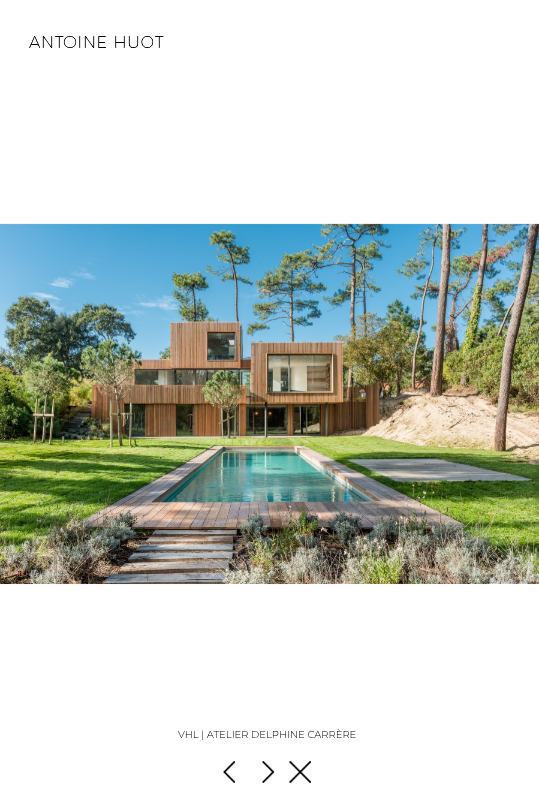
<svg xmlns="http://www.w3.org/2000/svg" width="539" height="803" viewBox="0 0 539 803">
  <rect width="100%" height="100%" fill="#fff"/>
  <image x="29" y="36" width="135" height="12" href="img/1.png"/>
  <image x="0" y="223" width="539" height="362" href="img/2.png"/>
  <image x="223" y="761" width="12" height="22" href="img/3.png"/>
  <image x="262" y="761" width="12" height="22" href="img/4.png"/>
  <image x="289" y="761" width="22" height="22" href="img/5.png"/>
  <text x="178" y="738" font-family="Montserrat" font-size="10" font-weight="300" fill="#000">VHL | ATELIER DELPHINE CARRÈRE</text>
</svg>
